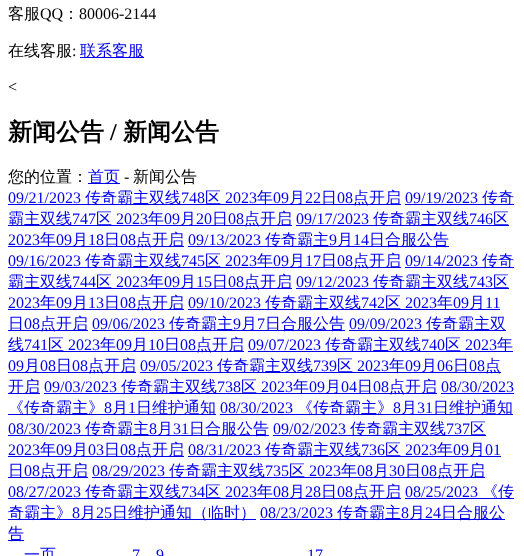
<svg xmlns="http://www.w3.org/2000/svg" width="524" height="556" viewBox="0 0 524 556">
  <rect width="100%" height="100%" fill="#fff"/>
  <path d="M80 57h64v1H80z" fill="#00e"/>
  <path d="M88 183h32v1H88z" fill="#00e"/>
  <path d="M8 204h393v1H8z" fill="#00e"/>
  <path d="M405 204h109v1H405z" fill="#00e"/>
  <path d="M8 225h284v1H8z" fill="#00e"/>
  <path d="M296 225h213v1H296z" fill="#00e"/>
  <path d="M8 246h176v1H8z" fill="#00e"/>
  <path d="M188 246h261v1H188z" fill="#00e"/>
  <path d="M8 267h393v1H8z" fill="#00e"/>
  <path d="M405 267h109v1H405z" fill="#00e"/>
  <path d="M8 288h284v1H8z" fill="#00e"/>
  <path d="M296 288h213v1H296z" fill="#00e"/>
  <path d="M8 309h176v1H8z" fill="#00e"/>
  <path d="M188 309h312v1H188z" fill="#00e"/>
  <path d="M8 330h80v1H8z" fill="#00e"/>
  <path d="M92 330h253v1H92z" fill="#00e"/>
  <path d="M349 330h157v1H349z" fill="#00e"/>
  <path d="M8 351h236v1H8z" fill="#00e"/>
  <path d="M248 351h265v1H248z" fill="#00e"/>
  <path d="M8 372h128v1H8z" fill="#00e"/>
  <path d="M140 372h361v1H140z" fill="#00e"/>
  <path d="M8 393h32v1H8z" fill="#00e"/>
  <path d="M44 393h393v1H44z" fill="#00e"/>
  <path d="M441 393h73v1H441z" fill="#00e"/>
  <path d="M8 414h208v1H8z" fill="#00e"/>
  <path d="M220 414h293v1H220z" fill="#00e"/>
  <path d="M8 435h261v1H8z" fill="#00e"/>
  <path d="M273 435h213v1H273z" fill="#00e"/>
  <path d="M8 456h176v1H8z" fill="#00e"/>
  <path d="M188 456h313v1H188z" fill="#00e"/>
  <path d="M8 477h80v1H8z" fill="#00e"/>
  <path d="M92 477h393v1H92z" fill="#00e"/>
  <path d="M8 498h393v1H8z" fill="#00e"/>
  <path d="M405 498h109v1H405z" fill="#00e"/>
  <path d="M8 519h248v1H8z" fill="#00e"/>
  <path d="M260 519h245v1H260z" fill="#00e"/>
  <path d="M8 540h16v1H8z" fill="#00e"/>
  <text x="8" y="19" font-family="WenQuanYi Zen Hei" font-size="16" font-weight="500" fill="#000">客服</text>
  <text x="40" y="19" font-family="Liberation Serif" font-size="16" fill="#000">QQ</text>
  <text x="63" y="19" font-family="WenQuanYi Zen Hei" font-size="16" font-weight="500" fill="#000">：</text>
  <text x="79" y="19" font-family="Liberation Serif" font-size="16" fill="#000">80006-2144</text>
  <text x="8" y="56" font-family="WenQuanYi Zen Hei" font-size="16" font-weight="500" fill="#000">在线客服</text>
  <text x="72" y="56" font-family="Liberation Serif" font-size="16" fill="#000">:</text>
  <text x="80" y="56" font-family="WenQuanYi Zen Hei" font-size="16" font-weight="500" fill="#00e">联系客服</text>
  <text x="8" y="92" font-family="Liberation Serif" font-size="16" fill="#000">&lt;</text>
  <text x="8" y="140" font-family="WenQuanYi Zen Hei" font-size="24" font-weight="bold" fill="#000">新闻公告</text>
  <text x="110" y="140" font-family="Liberation Serif" font-size="24" font-weight="bold" fill="#000">/</text>
  <text x="123" y="140" font-family="WenQuanYi Zen Hei" font-size="24" font-weight="bold" fill="#000">新闻公告</text>
  <text x="8" y="182" font-family="WenQuanYi Zen Hei" font-size="16" font-weight="500" fill="#000">您的位置：</text>
  <text x="88" y="182" font-family="WenQuanYi Zen Hei" font-size="16" font-weight="500" fill="#00e">首页</text>
  <text x="124" y="182" font-family="Liberation Serif" font-size="16" fill="#000">-</text>
  <text x="133" y="182" font-family="WenQuanYi Zen Hei" font-size="16" font-weight="500" fill="#000">新闻公告</text>
  <text x="8" y="203" font-family="Liberation Serif" font-size="16" fill="#00e">09/21/2023</text>
  <text x="85" y="203" font-family="WenQuanYi Zen Hei" font-size="16" font-weight="500" fill="#00e">传奇霸主双线</text>
  <text x="181" y="203" font-family="Liberation Serif" font-size="16" fill="#00e">748</text>
  <text x="205" y="203" font-family="WenQuanYi Zen Hei" font-size="16" font-weight="500" fill="#00e">区</text>
  <text x="225" y="203" font-family="Liberation Serif" font-size="16" fill="#00e">2023</text>
  <text x="257" y="203" font-family="WenQuanYi Zen Hei" font-size="16" font-weight="500" fill="#00e">年</text>
  <text x="273" y="203" font-family="Liberation Serif" font-size="16" fill="#00e">09</text>
  <text x="289" y="203" font-family="WenQuanYi Zen Hei" font-size="16" font-weight="500" fill="#00e">月</text>
  <text x="305" y="203" font-family="Liberation Serif" font-size="16" fill="#00e">22</text>
  <text x="321" y="203" font-family="WenQuanYi Zen Hei" font-size="16" font-weight="500" fill="#00e">日</text>
  <text x="337" y="203" font-family="Liberation Serif" font-size="16" fill="#00e">08</text>
  <text x="353" y="203" font-family="WenQuanYi Zen Hei" font-size="16" font-weight="500" fill="#00e">点开启</text>
  <text x="405" y="203" font-family="Liberation Serif" font-size="16" fill="#00e">09/19/2023</text>
  <g font-family="WenQuanYi Zen Hei" font-size="16" font-weight="500" fill="#00e">
    <text x="482" y="203">传奇</text>
    <text x="8" y="224">霸主双线</text>
  </g>
  <text x="72" y="224" font-family="Liberation Serif" font-size="16" fill="#00e">747</text>
  <text x="96" y="224" font-family="WenQuanYi Zen Hei" font-size="16" font-weight="500" fill="#00e">区</text>
  <text x="116" y="224" font-family="Liberation Serif" font-size="16" fill="#00e">2023</text>
  <text x="148" y="224" font-family="WenQuanYi Zen Hei" font-size="16" font-weight="500" fill="#00e">年</text>
  <text x="164" y="224" font-family="Liberation Serif" font-size="16" fill="#00e">09</text>
  <text x="180" y="224" font-family="WenQuanYi Zen Hei" font-size="16" font-weight="500" fill="#00e">月</text>
  <text x="196" y="224" font-family="Liberation Serif" font-size="16" fill="#00e">20</text>
  <text x="212" y="224" font-family="WenQuanYi Zen Hei" font-size="16" font-weight="500" fill="#00e">日</text>
  <text x="228" y="224" font-family="Liberation Serif" font-size="16" fill="#00e">08</text>
  <text x="244" y="224" font-family="WenQuanYi Zen Hei" font-size="16" font-weight="500" fill="#00e">点开启</text>
  <text x="296" y="224" font-family="Liberation Serif" font-size="16" fill="#00e">09/17/2023</text>
  <text x="373" y="224" font-family="WenQuanYi Zen Hei" font-size="16" font-weight="500" fill="#00e">传奇霸主双线</text>
  <text x="469" y="224" font-family="Liberation Serif" font-size="16" fill="#00e">746</text>
  <text x="493" y="224" font-family="WenQuanYi Zen Hei" font-size="16" font-weight="500" fill="#00e">区</text>
  <text x="8" y="245" font-family="Liberation Serif" font-size="16" fill="#00e">2023</text>
  <text x="40" y="245" font-family="WenQuanYi Zen Hei" font-size="16" font-weight="500" fill="#00e">年</text>
  <text x="56" y="245" font-family="Liberation Serif" font-size="16" fill="#00e">09</text>
  <text x="72" y="245" font-family="WenQuanYi Zen Hei" font-size="16" font-weight="500" fill="#00e">月</text>
  <text x="88" y="245" font-family="Liberation Serif" font-size="16" fill="#00e">18</text>
  <text x="104" y="245" font-family="WenQuanYi Zen Hei" font-size="16" font-weight="500" fill="#00e">日</text>
  <text x="120" y="245" font-family="Liberation Serif" font-size="16" fill="#00e">08</text>
  <text x="136" y="245" font-family="WenQuanYi Zen Hei" font-size="16" font-weight="500" fill="#00e">点开启</text>
  <text x="188" y="245" font-family="Liberation Serif" font-size="16" fill="#00e">09/13/2023</text>
  <text x="265" y="245" font-family="WenQuanYi Zen Hei" font-size="16" font-weight="500" fill="#00e">传奇霸主</text>
  <text x="329" y="245" font-family="Liberation Serif" font-size="16" fill="#00e">9</text>
  <text x="337" y="245" font-family="WenQuanYi Zen Hei" font-size="16" font-weight="500" fill="#00e">月</text>
  <text x="353" y="245" font-family="Liberation Serif" font-size="16" fill="#00e">14</text>
  <text x="369" y="245" font-family="WenQuanYi Zen Hei" font-size="16" font-weight="500" fill="#00e">日合服公告</text>
  <text x="8" y="266" font-family="Liberation Serif" font-size="16" fill="#00e">09/16/2023</text>
  <text x="85" y="266" font-family="WenQuanYi Zen Hei" font-size="16" font-weight="500" fill="#00e">传奇霸主双线</text>
  <text x="181" y="266" font-family="Liberation Serif" font-size="16" fill="#00e">745</text>
  <text x="205" y="266" font-family="WenQuanYi Zen Hei" font-size="16" font-weight="500" fill="#00e">区</text>
  <text x="225" y="266" font-family="Liberation Serif" font-size="16" fill="#00e">2023</text>
  <text x="257" y="266" font-family="WenQuanYi Zen Hei" font-size="16" font-weight="500" fill="#00e">年</text>
  <text x="273" y="266" font-family="Liberation Serif" font-size="16" fill="#00e">09</text>
  <text x="289" y="266" font-family="WenQuanYi Zen Hei" font-size="16" font-weight="500" fill="#00e">月</text>
  <text x="305" y="266" font-family="Liberation Serif" font-size="16" fill="#00e">17</text>
  <text x="321" y="266" font-family="WenQuanYi Zen Hei" font-size="16" font-weight="500" fill="#00e">日</text>
  <text x="337" y="266" font-family="Liberation Serif" font-size="16" fill="#00e">08</text>
  <text x="353" y="266" font-family="WenQuanYi Zen Hei" font-size="16" font-weight="500" fill="#00e">点开启</text>
  <text x="405" y="266" font-family="Liberation Serif" font-size="16" fill="#00e">09/14/2023</text>
  <g font-family="WenQuanYi Zen Hei" font-size="16" font-weight="500" fill="#00e">
    <text x="482" y="266">传奇</text>
    <text x="8" y="287">霸主双线</text>
  </g>
  <text x="72" y="287" font-family="Liberation Serif" font-size="16" fill="#00e">744</text>
  <text x="96" y="287" font-family="WenQuanYi Zen Hei" font-size="16" font-weight="500" fill="#00e">区</text>
  <text x="116" y="287" font-family="Liberation Serif" font-size="16" fill="#00e">2023</text>
  <text x="148" y="287" font-family="WenQuanYi Zen Hei" font-size="16" font-weight="500" fill="#00e">年</text>
  <text x="164" y="287" font-family="Liberation Serif" font-size="16" fill="#00e">09</text>
  <text x="180" y="287" font-family="WenQuanYi Zen Hei" font-size="16" font-weight="500" fill="#00e">月</text>
  <text x="196" y="287" font-family="Liberation Serif" font-size="16" fill="#00e">15</text>
  <text x="212" y="287" font-family="WenQuanYi Zen Hei" font-size="16" font-weight="500" fill="#00e">日</text>
  <text x="228" y="287" font-family="Liberation Serif" font-size="16" fill="#00e">08</text>
  <text x="244" y="287" font-family="WenQuanYi Zen Hei" font-size="16" font-weight="500" fill="#00e">点开启</text>
  <text x="296" y="287" font-family="Liberation Serif" font-size="16" fill="#00e">09/12/2023</text>
  <text x="373" y="287" font-family="WenQuanYi Zen Hei" font-size="16" font-weight="500" fill="#00e">传奇霸主双线</text>
  <text x="469" y="287" font-family="Liberation Serif" font-size="16" fill="#00e">743</text>
  <text x="493" y="287" font-family="WenQuanYi Zen Hei" font-size="16" font-weight="500" fill="#00e">区</text>
  <text x="8" y="308" font-family="Liberation Serif" font-size="16" fill="#00e">2023</text>
  <text x="40" y="308" font-family="WenQuanYi Zen Hei" font-size="16" font-weight="500" fill="#00e">年</text>
  <text x="56" y="308" font-family="Liberation Serif" font-size="16" fill="#00e">09</text>
  <text x="72" y="308" font-family="WenQuanYi Zen Hei" font-size="16" font-weight="500" fill="#00e">月</text>
  <text x="88" y="308" font-family="Liberation Serif" font-size="16" fill="#00e">13</text>
  <text x="104" y="308" font-family="WenQuanYi Zen Hei" font-size="16" font-weight="500" fill="#00e">日</text>
  <text x="120" y="308" font-family="Liberation Serif" font-size="16" fill="#00e">08</text>
  <text x="136" y="308" font-family="WenQuanYi Zen Hei" font-size="16" font-weight="500" fill="#00e">点开启</text>
  <text x="188" y="308" font-family="Liberation Serif" font-size="16" fill="#00e">09/10/2023</text>
  <text x="265" y="308" font-family="WenQuanYi Zen Hei" font-size="16" font-weight="500" fill="#00e">传奇霸主双线</text>
  <text x="361" y="308" font-family="Liberation Serif" font-size="16" fill="#00e">742</text>
  <text x="385" y="308" font-family="WenQuanYi Zen Hei" font-size="16" font-weight="500" fill="#00e">区</text>
  <text x="405" y="308" font-family="Liberation Serif" font-size="16" fill="#00e">2023</text>
  <text x="437" y="308" font-family="WenQuanYi Zen Hei" font-size="16" font-weight="500" fill="#00e">年</text>
  <text x="453" y="308" font-family="Liberation Serif" font-size="16" fill="#00e">09</text>
  <text x="469" y="308" font-family="WenQuanYi Zen Hei" font-size="16" font-weight="500" fill="#00e">月</text>
  <text x="485" y="308" font-family="Liberation Serif" font-size="16" fill="#00e">11</text>
  <text x="8" y="329" font-family="WenQuanYi Zen Hei" font-size="16" font-weight="500" fill="#00e">日</text>
  <text x="24" y="329" font-family="Liberation Serif" font-size="16" fill="#00e">08</text>
  <text x="40" y="329" font-family="WenQuanYi Zen Hei" font-size="16" font-weight="500" fill="#00e">点开启</text>
  <text x="92" y="329" font-family="Liberation Serif" font-size="16" fill="#00e">09/06/2023</text>
  <text x="169" y="329" font-family="WenQuanYi Zen Hei" font-size="16" font-weight="500" fill="#00e">传奇霸主</text>
  <text x="233" y="329" font-family="Liberation Serif" font-size="16" fill="#00e">9</text>
  <text x="241" y="329" font-family="WenQuanYi Zen Hei" font-size="16" font-weight="500" fill="#00e">月</text>
  <text x="257" y="329" font-family="Liberation Serif" font-size="16" fill="#00e">7</text>
  <text x="265" y="329" font-family="WenQuanYi Zen Hei" font-size="16" font-weight="500" fill="#00e">日合服公告</text>
  <text x="349" y="329" font-family="Liberation Serif" font-size="16" fill="#00e">09/09/2023</text>
  <g font-family="WenQuanYi Zen Hei" font-size="16" font-weight="500" fill="#00e">
    <text x="426" y="329">传奇霸主双</text>
    <text x="8" y="350">线</text>
  </g>
  <text x="24" y="350" font-family="Liberation Serif" font-size="16" fill="#00e">741</text>
  <text x="48" y="350" font-family="WenQuanYi Zen Hei" font-size="16" font-weight="500" fill="#00e">区</text>
  <text x="68" y="350" font-family="Liberation Serif" font-size="16" fill="#00e">2023</text>
  <text x="100" y="350" font-family="WenQuanYi Zen Hei" font-size="16" font-weight="500" fill="#00e">年</text>
  <text x="116" y="350" font-family="Liberation Serif" font-size="16" fill="#00e">09</text>
  <text x="132" y="350" font-family="WenQuanYi Zen Hei" font-size="16" font-weight="500" fill="#00e">月</text>
  <text x="148" y="350" font-family="Liberation Serif" font-size="16" fill="#00e">10</text>
  <text x="164" y="350" font-family="WenQuanYi Zen Hei" font-size="16" font-weight="500" fill="#00e">日</text>
  <text x="180" y="350" font-family="Liberation Serif" font-size="16" fill="#00e">08</text>
  <text x="196" y="350" font-family="WenQuanYi Zen Hei" font-size="16" font-weight="500" fill="#00e">点开启</text>
  <text x="248" y="350" font-family="Liberation Serif" font-size="16" fill="#00e">09/07/2023</text>
  <text x="325" y="350" font-family="WenQuanYi Zen Hei" font-size="16" font-weight="500" fill="#00e">传奇霸主双线</text>
  <text x="421" y="350" font-family="Liberation Serif" font-size="16" fill="#00e">740</text>
  <text x="445" y="350" font-family="WenQuanYi Zen Hei" font-size="16" font-weight="500" fill="#00e">区</text>
  <text x="465" y="350" font-family="Liberation Serif" font-size="16" fill="#00e">2023</text>
  <text x="497" y="350" font-family="WenQuanYi Zen Hei" font-size="16" font-weight="500" fill="#00e">年</text>
  <text x="8" y="371" font-family="Liberation Serif" font-size="16" fill="#00e">09</text>
  <text x="24" y="371" font-family="WenQuanYi Zen Hei" font-size="16" font-weight="500" fill="#00e">月</text>
  <text x="40" y="371" font-family="Liberation Serif" font-size="16" fill="#00e">08</text>
  <text x="56" y="371" font-family="WenQuanYi Zen Hei" font-size="16" font-weight="500" fill="#00e">日</text>
  <text x="72" y="371" font-family="Liberation Serif" font-size="16" fill="#00e">08</text>
  <text x="88" y="371" font-family="WenQuanYi Zen Hei" font-size="16" font-weight="500" fill="#00e">点开启</text>
  <text x="140" y="371" font-family="Liberation Serif" font-size="16" fill="#00e">09/05/2023</text>
  <text x="217" y="371" font-family="WenQuanYi Zen Hei" font-size="16" font-weight="500" fill="#00e">传奇霸主双线</text>
  <text x="313" y="371" font-family="Liberation Serif" font-size="16" fill="#00e">739</text>
  <text x="337" y="371" font-family="WenQuanYi Zen Hei" font-size="16" font-weight="500" fill="#00e">区</text>
  <text x="357" y="371" font-family="Liberation Serif" font-size="16" fill="#00e">2023</text>
  <text x="389" y="371" font-family="WenQuanYi Zen Hei" font-size="16" font-weight="500" fill="#00e">年</text>
  <text x="405" y="371" font-family="Liberation Serif" font-size="16" fill="#00e">09</text>
  <text x="421" y="371" font-family="WenQuanYi Zen Hei" font-size="16" font-weight="500" fill="#00e">月</text>
  <text x="437" y="371" font-family="Liberation Serif" font-size="16" fill="#00e">06</text>
  <text x="453" y="371" font-family="WenQuanYi Zen Hei" font-size="16" font-weight="500" fill="#00e">日</text>
  <text x="469" y="371" font-family="Liberation Serif" font-size="16" fill="#00e">08</text>
  <g font-family="WenQuanYi Zen Hei" font-size="16" font-weight="500" fill="#00e">
    <text x="485" y="371">点</text>
    <text x="8" y="392">开启</text>
  </g>
  <text x="44" y="392" font-family="Liberation Serif" font-size="16" fill="#00e">09/03/2023</text>
  <text x="121" y="392" font-family="WenQuanYi Zen Hei" font-size="16" font-weight="500" fill="#00e">传奇霸主双线</text>
  <text x="217" y="392" font-family="Liberation Serif" font-size="16" fill="#00e">738</text>
  <text x="241" y="392" font-family="WenQuanYi Zen Hei" font-size="16" font-weight="500" fill="#00e">区</text>
  <text x="261" y="392" font-family="Liberation Serif" font-size="16" fill="#00e">2023</text>
  <text x="293" y="392" font-family="WenQuanYi Zen Hei" font-size="16" font-weight="500" fill="#00e">年</text>
  <text x="309" y="392" font-family="Liberation Serif" font-size="16" fill="#00e">09</text>
  <text x="325" y="392" font-family="WenQuanYi Zen Hei" font-size="16" font-weight="500" fill="#00e">月</text>
  <text x="341" y="392" font-family="Liberation Serif" font-size="16" fill="#00e">04</text>
  <text x="357" y="392" font-family="WenQuanYi Zen Hei" font-size="16" font-weight="500" fill="#00e">日</text>
  <text x="373" y="392" font-family="Liberation Serif" font-size="16" fill="#00e">08</text>
  <text x="389" y="392" font-family="WenQuanYi Zen Hei" font-size="16" font-weight="500" fill="#00e">点开启</text>
  <text x="441" y="392" font-family="Liberation Serif" font-size="16" fill="#00e">08/30/2023</text>
  <text x="8" y="413" font-family="WenQuanYi Zen Hei" font-size="16" font-weight="500" fill="#00e">《传奇霸主》</text>
  <text x="104" y="413" font-family="Liberation Serif" font-size="16" fill="#00e">8</text>
  <text x="112" y="413" font-family="WenQuanYi Zen Hei" font-size="16" font-weight="500" fill="#00e">月</text>
  <text x="128" y="413" font-family="Liberation Serif" font-size="16" fill="#00e">1</text>
  <text x="136" y="413" font-family="WenQuanYi Zen Hei" font-size="16" font-weight="500" fill="#00e">日维护通知</text>
  <text x="220" y="413" font-family="Liberation Serif" font-size="16" fill="#00e">08/30/2023</text>
  <text x="297" y="413" font-family="WenQuanYi Zen Hei" font-size="16" font-weight="500" fill="#00e">《传奇霸主》</text>
  <text x="393" y="413" font-family="Liberation Serif" font-size="16" fill="#00e">8</text>
  <text x="401" y="413" font-family="WenQuanYi Zen Hei" font-size="16" font-weight="500" fill="#00e">月</text>
  <text x="417" y="413" font-family="Liberation Serif" font-size="16" fill="#00e">31</text>
  <text x="433" y="413" font-family="WenQuanYi Zen Hei" font-size="16" font-weight="500" fill="#00e">日维护通知</text>
  <text x="8" y="434" font-family="Liberation Serif" font-size="16" fill="#00e">08/30/2023</text>
  <text x="85" y="434" font-family="WenQuanYi Zen Hei" font-size="16" font-weight="500" fill="#00e">传奇霸主</text>
  <text x="149" y="434" font-family="Liberation Serif" font-size="16" fill="#00e">8</text>
  <text x="157" y="434" font-family="WenQuanYi Zen Hei" font-size="16" font-weight="500" fill="#00e">月</text>
  <text x="173" y="434" font-family="Liberation Serif" font-size="16" fill="#00e">31</text>
  <text x="189" y="434" font-family="WenQuanYi Zen Hei" font-size="16" font-weight="500" fill="#00e">日合服公告</text>
  <text x="273" y="434" font-family="Liberation Serif" font-size="16" fill="#00e">09/02/2023</text>
  <text x="350" y="434" font-family="WenQuanYi Zen Hei" font-size="16" font-weight="500" fill="#00e">传奇霸主双线</text>
  <text x="446" y="434" font-family="Liberation Serif" font-size="16" fill="#00e">737</text>
  <text x="470" y="434" font-family="WenQuanYi Zen Hei" font-size="16" font-weight="500" fill="#00e">区</text>
  <text x="8" y="455" font-family="Liberation Serif" font-size="16" fill="#00e">2023</text>
  <text x="40" y="455" font-family="WenQuanYi Zen Hei" font-size="16" font-weight="500" fill="#00e">年</text>
  <text x="56" y="455" font-family="Liberation Serif" font-size="16" fill="#00e">09</text>
  <text x="72" y="455" font-family="WenQuanYi Zen Hei" font-size="16" font-weight="500" fill="#00e">月</text>
  <text x="88" y="455" font-family="Liberation Serif" font-size="16" fill="#00e">03</text>
  <text x="104" y="455" font-family="WenQuanYi Zen Hei" font-size="16" font-weight="500" fill="#00e">日</text>
  <text x="120" y="455" font-family="Liberation Serif" font-size="16" fill="#00e">08</text>
  <text x="136" y="455" font-family="WenQuanYi Zen Hei" font-size="16" font-weight="500" fill="#00e">点开启</text>
  <text x="188" y="455" font-family="Liberation Serif" font-size="16" fill="#00e">08/31/2023</text>
  <text x="265" y="455" font-family="WenQuanYi Zen Hei" font-size="16" font-weight="500" fill="#00e">传奇霸主双线</text>
  <text x="361" y="455" font-family="Liberation Serif" font-size="16" fill="#00e">736</text>
  <text x="385" y="455" font-family="WenQuanYi Zen Hei" font-size="16" font-weight="500" fill="#00e">区</text>
  <text x="405" y="455" font-family="Liberation Serif" font-size="16" fill="#00e">2023</text>
  <text x="437" y="455" font-family="WenQuanYi Zen Hei" font-size="16" font-weight="500" fill="#00e">年</text>
  <text x="453" y="455" font-family="Liberation Serif" font-size="16" fill="#00e">09</text>
  <text x="469" y="455" font-family="WenQuanYi Zen Hei" font-size="16" font-weight="500" fill="#00e">月</text>
  <text x="485" y="455" font-family="Liberation Serif" font-size="16" fill="#00e">01</text>
  <text x="8" y="476" font-family="WenQuanYi Zen Hei" font-size="16" font-weight="500" fill="#00e">日</text>
  <text x="24" y="476" font-family="Liberation Serif" font-size="16" fill="#00e">08</text>
  <text x="40" y="476" font-family="WenQuanYi Zen Hei" font-size="16" font-weight="500" fill="#00e">点开启</text>
  <text x="92" y="476" font-family="Liberation Serif" font-size="16" fill="#00e">08/29/2023</text>
  <text x="169" y="476" font-family="WenQuanYi Zen Hei" font-size="16" font-weight="500" fill="#00e">传奇霸主双线</text>
  <text x="265" y="476" font-family="Liberation Serif" font-size="16" fill="#00e">735</text>
  <text x="289" y="476" font-family="WenQuanYi Zen Hei" font-size="16" font-weight="500" fill="#00e">区</text>
  <text x="309" y="476" font-family="Liberation Serif" font-size="16" fill="#00e">2023</text>
  <text x="341" y="476" font-family="WenQuanYi Zen Hei" font-size="16" font-weight="500" fill="#00e">年</text>
  <text x="357" y="476" font-family="Liberation Serif" font-size="16" fill="#00e">08</text>
  <text x="373" y="476" font-family="WenQuanYi Zen Hei" font-size="16" font-weight="500" fill="#00e">月</text>
  <text x="389" y="476" font-family="Liberation Serif" font-size="16" fill="#00e">30</text>
  <text x="405" y="476" font-family="WenQuanYi Zen Hei" font-size="16" font-weight="500" fill="#00e">日</text>
  <text x="421" y="476" font-family="Liberation Serif" font-size="16" fill="#00e">08</text>
  <text x="437" y="476" font-family="WenQuanYi Zen Hei" font-size="16" font-weight="500" fill="#00e">点开启</text>
  <text x="8" y="497" font-family="Liberation Serif" font-size="16" fill="#00e">08/27/2023</text>
  <text x="85" y="497" font-family="WenQuanYi Zen Hei" font-size="16" font-weight="500" fill="#00e">传奇霸主双线</text>
  <text x="181" y="497" font-family="Liberation Serif" font-size="16" fill="#00e">734</text>
  <text x="205" y="497" font-family="WenQuanYi Zen Hei" font-size="16" font-weight="500" fill="#00e">区</text>
  <text x="225" y="497" font-family="Liberation Serif" font-size="16" fill="#00e">2023</text>
  <text x="257" y="497" font-family="WenQuanYi Zen Hei" font-size="16" font-weight="500" fill="#00e">年</text>
  <text x="273" y="497" font-family="Liberation Serif" font-size="16" fill="#00e">08</text>
  <text x="289" y="497" font-family="WenQuanYi Zen Hei" font-size="16" font-weight="500" fill="#00e">月</text>
  <text x="305" y="497" font-family="Liberation Serif" font-size="16" fill="#00e">28</text>
  <text x="321" y="497" font-family="WenQuanYi Zen Hei" font-size="16" font-weight="500" fill="#00e">日</text>
  <text x="337" y="497" font-family="Liberation Serif" font-size="16" fill="#00e">08</text>
  <text x="353" y="497" font-family="WenQuanYi Zen Hei" font-size="16" font-weight="500" fill="#00e">点开启</text>
  <text x="405" y="497" font-family="Liberation Serif" font-size="16" fill="#00e">08/25/2023</text>
  <g font-family="WenQuanYi Zen Hei" font-size="16" font-weight="500" fill="#00e">
    <text x="482" y="497">《传</text>
    <text x="8" y="518">奇霸主》</text>
  </g>
  <text x="72" y="518" font-family="Liberation Serif" font-size="16" fill="#00e">8</text>
  <text x="80" y="518" font-family="WenQuanYi Zen Hei" font-size="16" font-weight="500" fill="#00e">月</text>
  <text x="96" y="518" font-family="Liberation Serif" font-size="16" fill="#00e">25</text>
  <text x="112" y="518" font-family="WenQuanYi Zen Hei" font-size="16" font-weight="500" fill="#00e">日维护通知（临时）</text>
  <text x="260" y="518" font-family="Liberation Serif" font-size="16" fill="#00e">08/23/2023</text>
  <text x="337" y="518" font-family="WenQuanYi Zen Hei" font-size="16" font-weight="500" fill="#00e">传奇霸主</text>
  <text x="401" y="518" font-family="Liberation Serif" font-size="16" fill="#00e">8</text>
  <text x="409" y="518" font-family="WenQuanYi Zen Hei" font-size="16" font-weight="500" fill="#00e">月</text>
  <text x="425" y="518" font-family="Liberation Serif" font-size="16" fill="#00e">24</text>
  <g font-family="WenQuanYi Zen Hei" font-size="16" font-weight="500" fill="#00e">
    <text x="441" y="518">日合服公</text>
    <text x="8" y="539">告</text>
    <text x="24" y="560">一页</text>
  </g>
  <g font-family="Liberation Serif" font-size="16" fill="#00e">
    <text x="132" y="560">7</text>
    <text x="156" y="560">9</text>
    <text x="307" y="560">17</text>
  </g>
</svg>
